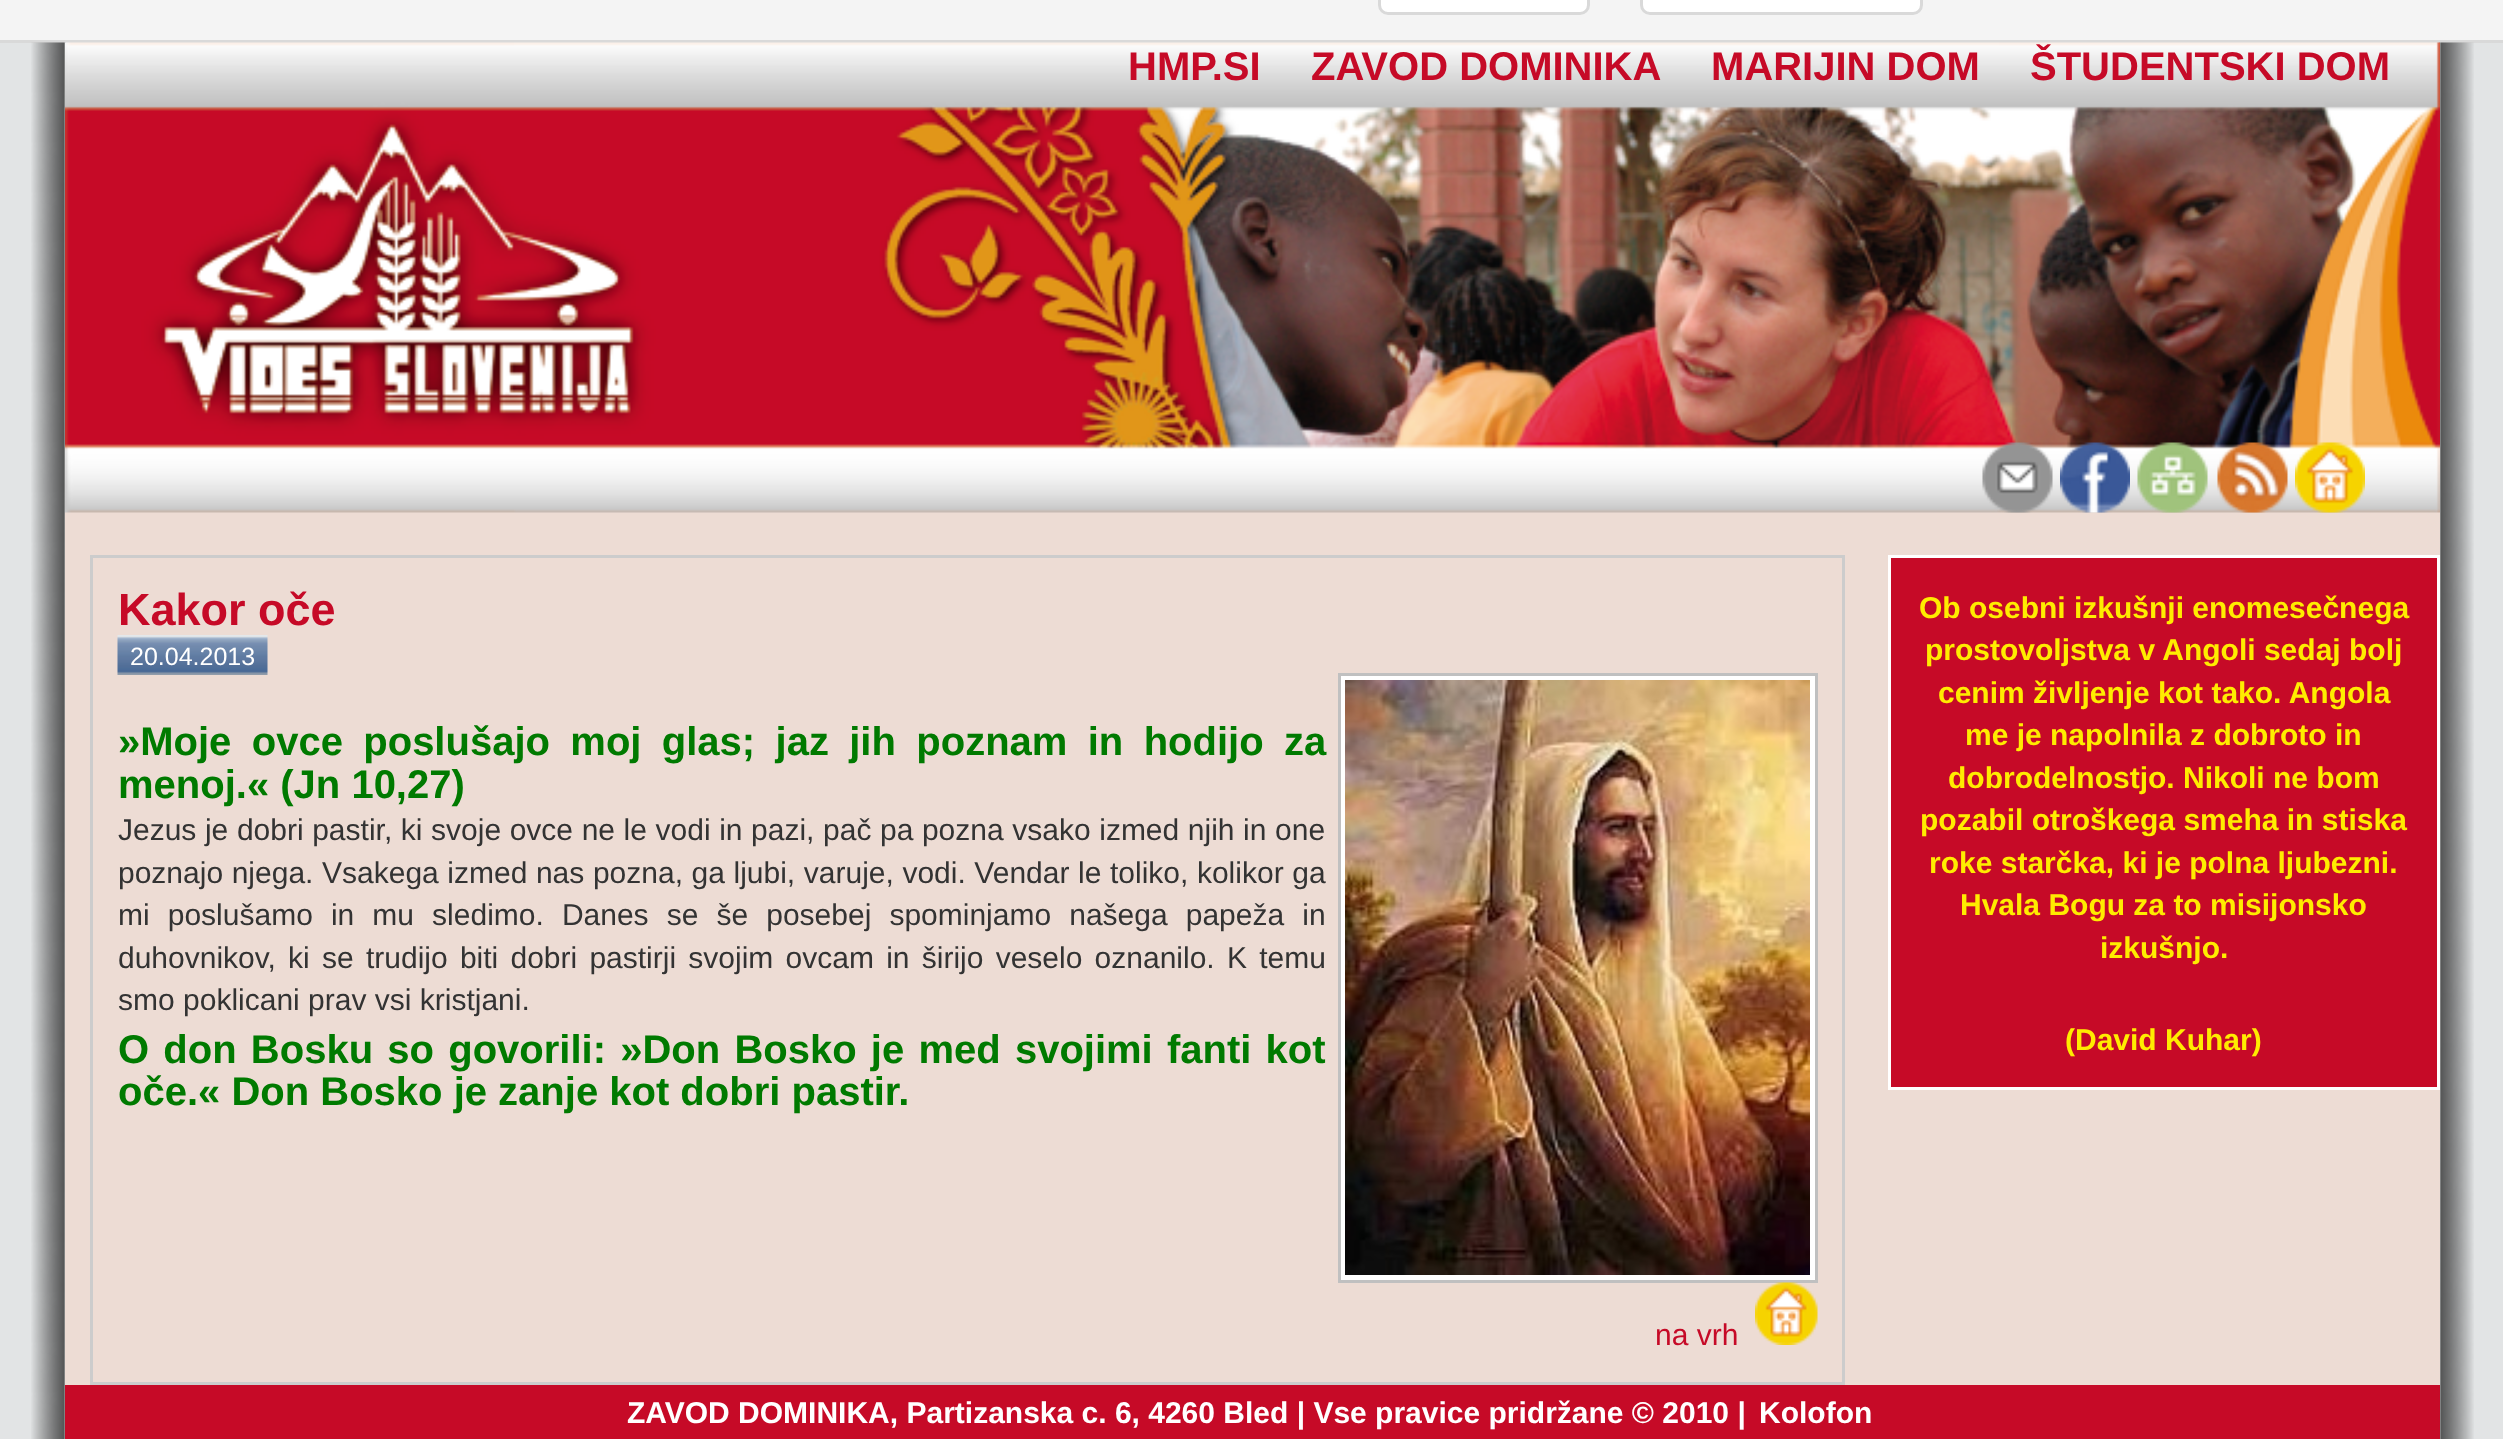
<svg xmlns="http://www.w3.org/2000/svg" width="2503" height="1439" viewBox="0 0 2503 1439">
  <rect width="100%" height="100%" fill="#e2e4e5"/>
  <path d="M0 0h2503v40H0z" fill="#f4f4f4"/>
  <path d="M0 40h2503v3H0z" fill="#d9d9d9"/>
  <rect x="1379.5" y="-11.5" width="209" height="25" rx="8.5" fill="#fff" stroke="#d9d9d9" stroke-width="3"/>
  <rect x="1641.5" y="-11.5" width="280" height="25" rx="8.5" fill="#fff" stroke="#d9d9d9" stroke-width="3"/>
  <image x="31" y="42" width="2443" height="1397" href="img/1.png"/>
  <path d="M65 43h2375v1342H65z" fill="#eddcd4"/>
  <image x="65" y="42" width="2375" height="471" href="img/2.png"/>
  <image x="1982" y="442" width="71" height="71" href="img/3.png"/>
  <image x="2060" y="442" width="70" height="71" href="img/4.png"/>
  <image x="2137" y="442" width="71" height="71" href="img/5.png"/>
  <image x="2217" y="442" width="71" height="71" href="img/6.png"/>
  <image x="2295" y="442" width="70" height="71" href="img/7.png"/>
  <path d="M91.5 556.5h1752v827H91.5z" fill="none" stroke="#ccc" stroke-width="3"/>
  <image x="117" y="635" width="151" height="40" href="img/8.png"/>
  <path d="M1339.5 674.5h477v607H1339.5z" fill="#fff" stroke="#c0c0c0" stroke-width="3"/>
  <image x="1345" y="680" width="465" height="595" href="img/9.png"/>
  <image x="1755" y="1282" width="63" height="63" href="img/10.png"/>
  <path d="M1889.5 556.5h549v532H1889.5z" fill="#c60a27" stroke="#fff" stroke-width="3"/>
  <path d="M65 1385h2375v54H65z" fill="#c60a27"/>
  <g font-family="Liberation Sans" font-size="40" font-weight="bold" fill="#c60a27">
    <text x="1128" y="80">HMP.SI</text>
    <text x="1311" y="80">ZAVOD DOMINIKA</text>
    <text x="1711" y="80">MARIJIN DOM</text>
    <text x="2030" y="80">ŠTUDENTSKI DOM</text>
  </g>
  <text x="118" y="625" font-family="Liberation Sans" font-size="45" font-weight="bold" fill="#c60a27">Kakor oče</text>
  <text x="130" y="665" font-family="Liberation Sans" font-size="25" fill="#fff">20.04.2013</text>
  <g font-family="Liberation Sans" font-size="40" font-weight="bold" fill="#007a00">
    <text x="118" y="755" word-spacing="9.25">»Moje ovce poslušajo moj glas; jaz jih poznam in hodijo za</text>
    <text x="118" y="798">menoj.« (Jn 10,27)</text>
  </g>
  <g font-family="Liberation Sans" font-size="30" fill="#333">
    <text x="118" y="840" word-spacing="0.25">Jezus je dobri pastir, ki svoje ovce ne le vodi in pazi, pač pa pozna vsako izmed njih in one</text>
    <text x="118" y="883" word-spacing="0.25">poznajo njega. Vsakega izmed nas pozna, ga ljubi, varuje, vodi. Vendar le toliko, kolikor ga</text>
    <text x="118" y="925" word-spacing="9.75">mi poslušamo in mu sledimo. Danes se še posebej spominjamo našega papeža in</text>
    <text x="118" y="968" word-spacing="3.9">duhovnikov, ki se trudijo biti dobri pastirji svojim ovcam in širijo veselo oznanilo. K temu</text>
    <text x="118" y="1010">smo poklicani prav vsi kristjani.</text>
  </g>
  <g font-family="Liberation Sans" font-size="40" font-weight="bold" fill="#007a00">
    <text x="118" y="1063" word-spacing="3.1">O don Bosku so govorili: »Don Bosko je med svojimi fanti kot</text>
    <text x="118" y="1105">oče.« Don Bosko je zanje kot dobri pastir.</text>
  </g>
  <text x="1655" y="1345" font-family="Liberation Sans" font-size="30" fill="#c60a27">na vrh</text>
  <g font-family="Liberation Sans" font-size="30" font-weight="bold" fill="#ffec00">
    <text x="1919" y="618">Ob osebni izkušnji enomesečnega</text>
    <text x="1925" y="660">prostovoljstva v Angoli sedaj bolj</text>
    <text x="1938" y="703">cenim življenje kot tako. Angola</text>
    <text x="1965" y="745">me je napolnila z dobroto in</text>
    <text x="1948" y="788">dobrodelnostjo. Nikoli ne bom</text>
    <text x="1920" y="830">pozabil otroškega smeha in stiska</text>
    <text x="1929" y="873">roke starčka, ki je polna ljubezni.</text>
    <text x="1960" y="915">Hvala Bogu za to misijonsko</text>
    <text x="2100" y="958">izkušnjo.</text>
    <text x="2065" y="1050">(David Kuhar)</text>
  </g>
  <g font-family="Liberation Sans" font-size="30" font-weight="bold" fill="#fff">
    <text x="627" y="1423">ZAVOD DOMINIKA, Partizanska c. 6, 4260 Bled | Vse pravice pridržane © 2010 |</text>
    <text x="1759" y="1423">Kolofon</text>
  </g>
</svg>
